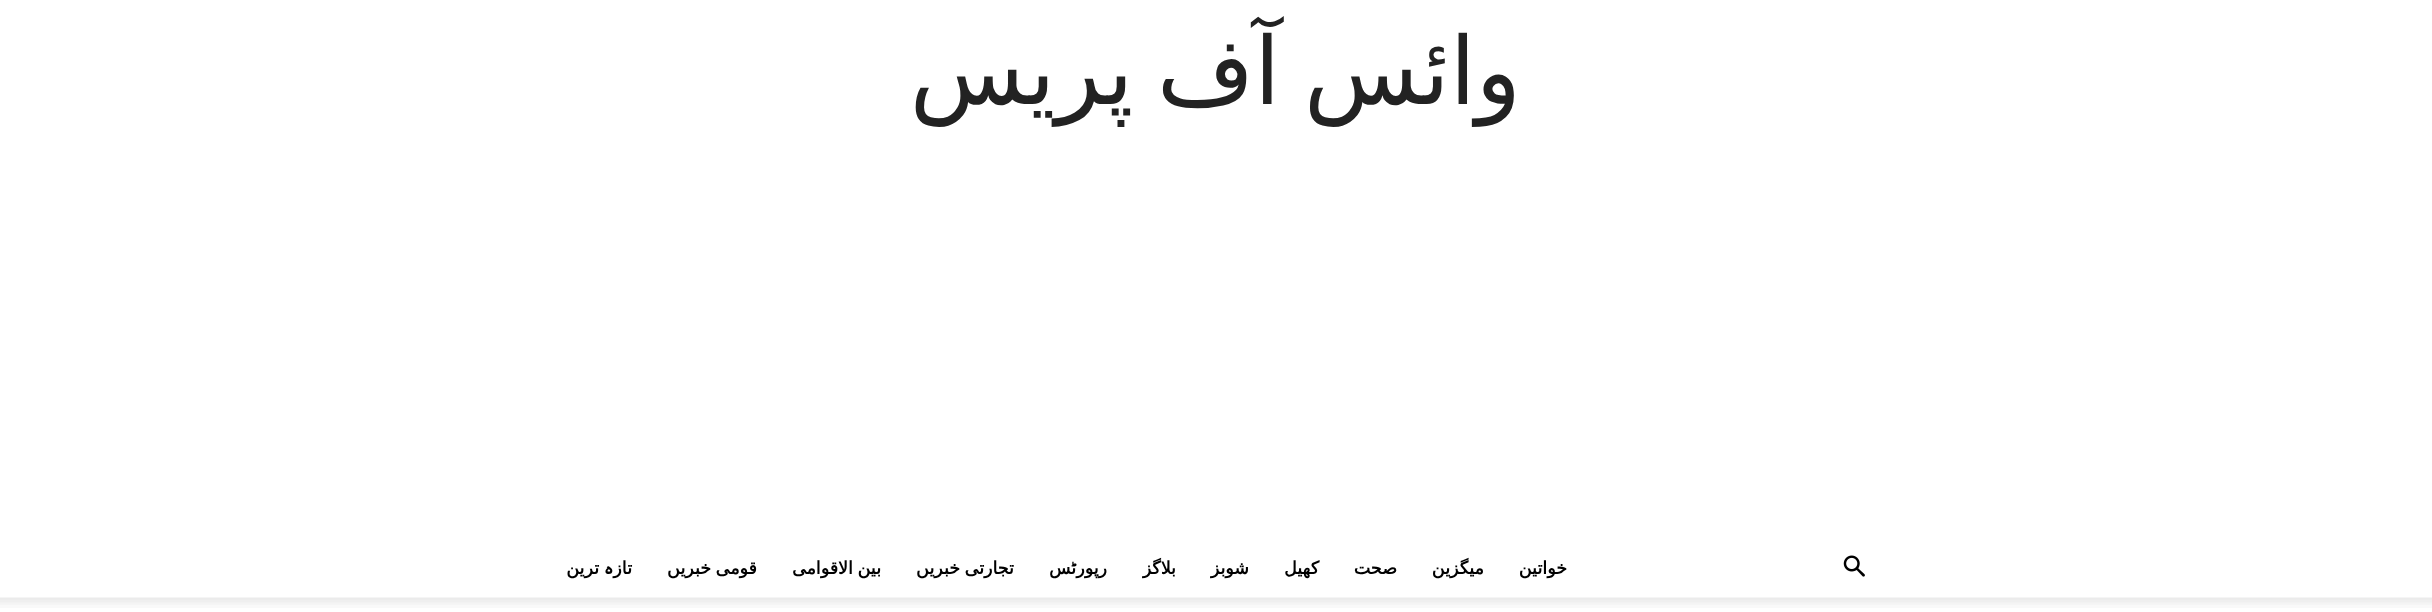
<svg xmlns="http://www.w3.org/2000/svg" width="2432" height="612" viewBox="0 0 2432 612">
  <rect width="100%" height="100%" fill="#fff"/>
  <image x="1843" y="555" width="22" height="22" href="img/1.png"/>
  <image x="0" y="597" width="2432" height="11" href="img/2.png"/>
  <text x="1521" y="104" word-spacing="-6" font-family="DejaVu Sans" font-size="93.75" direction="rtl" fill="#222">وائس آف پریس</text>
  <g font-family="DejaVu Sans" font-size="17.5" font-weight="bold" direction="rtl" fill="#000">
    <text x="1567" y="574">خواتین</text>
    <text x="1484" y="574">میگزین</text>
    <text x="1397" y="574">صحت</text>
    <text x="1319" y="574">کھیل</text>
    <text x="1249" y="574">شوبز</text>
    <text x="1176" y="574">بلاگز</text>
    <text x="1107" y="574">رپورٹس</text>
    <text x="1014" y="574" word-spacing="-1">تجارتی خبریں</text>
    <text x="881" y="574" word-spacing="-1">بین الاقوامی</text>
    <text x="757" y="574" word-spacing="-1">قومی خبریں</text>
    <text x="632" y="574">تاز</text>
  </g>
  <text x="614" y="574" font-family="Cascadia Code" font-size="17.5" font-weight="bold" direction="rtl" fill="#000">ہ</text>
  <text x="599" y="574" font-family="DejaVu Sans" font-size="17.5" font-weight="bold" direction="rtl" fill="#000">ترین</text>
</svg>
